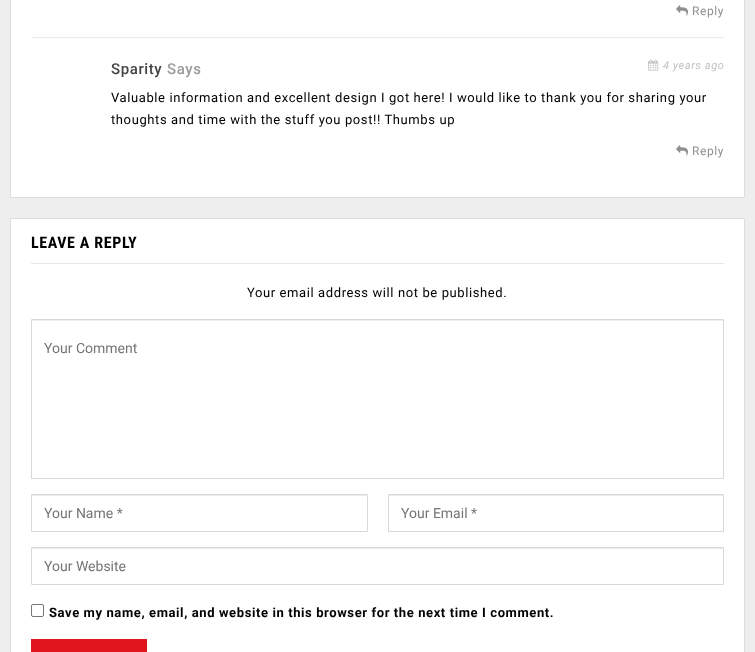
<svg xmlns="http://www.w3.org/2000/svg" width="755" height="652" viewBox="0 0 755 652">
  <rect width="100%" height="100%" fill="#eee"/>
  <path d="M10.5 -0.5h734v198H10.5z" fill="#fff" stroke="#ddd"/>
  <image x="676" y="5" width="12" height="11" href="img/1.png"/>
  <path d="M31 37h693v1H31z" fill="#ebebeb"/>
  <image x="648" y="59" width="11" height="12" href="img/2.png"/>
  <image x="676" y="145" width="12" height="11" href="img/1.png"/>
  <path d="M10.5 218.5h734v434H10.5z" fill="#fff" stroke="#ddd"/>
  <path d="M31 263h693v1H31z" fill="#e6e6e6"/>
  <path d="M32 320h691v1H32z" fill="#ececec"/>
  <path d="M31.5 319.5h692v159H31.5z" fill="none" stroke="#d8d8d8"/>
  <path d="M32 495h335v1H32z" fill="#ececec"/>
  <path d="M31.5 494.5h336v37H31.5z" fill="none" stroke="#d8d8d8"/>
  <path d="M389 495h334v1H389z" fill="#ececec"/>
  <path d="M388.5 494.5h335v37H388.5z" fill="none" stroke="#d8d8d8"/>
  <path d="M32 548h691v1H32z" fill="#ececec"/>
  <path d="M31.5 547.5h692v37H31.5z" fill="none" stroke="#d8d8d8"/>
  <rect x="31.5" y="604.5" width="12" height="12" rx="1.5" fill="none" stroke="#767676"/>
  <path d="M31 639h116v13H31z" fill="#df161e"/>
  <text x="692" y="15" font-family="Roboto" font-size="12" letter-spacing="0.6" fill="#909090">Reply</text>
  <text x="111" y="74" font-family="Roboto" font-size="15" font-weight="500" letter-spacing="0.6" fill="#444">Sparity</text>
  <text x="167" y="74" font-family="Roboto" font-size="15" font-weight="500" letter-spacing="0.6" fill="#9a9a9a">Says</text>
  <text x="663" y="69" font-family="Roboto" font-size="11" font-style="italic" letter-spacing="0.6" fill="#c2c2c2">4 years ago</text>
  <g font-family="Roboto" font-size="13" letter-spacing="0.6" fill="#000">
    <text x="111" y="102">Valuable information and excellent design I got here! I would like to thank you for sharing your</text>
    <text x="111" y="124">thoughts and time with the stuff you post!! Thumbs up</text>
  </g>
  <text x="692" y="155" font-family="Roboto" font-size="12" letter-spacing="0.6" fill="#909090">Reply</text>
  <text x="31" y="248" font-family="Roboto Condensed" font-size="16" font-weight="bold" letter-spacing="0.6" fill="#000">LEAVE A REPLY</text>
  <text x="247" y="297" font-family="Roboto" font-size="13" letter-spacing="0.6" fill="#000">Your email address will not be published.</text>
  <g font-family="Roboto" font-size="14" fill="#757575">
    <text x="44" y="353">Your Comment</text>
    <text x="44" y="518">Your Name *</text>
    <text x="401" y="518">Your Email *</text>
    <text x="44" y="571">Your Website</text>
  </g>
  <text x="49" y="617" font-family="Roboto" font-size="13" font-weight="bold" letter-spacing="0.6" fill="#000">Save my name, email, and website in this browser for the next time I comment.</text>
</svg>
